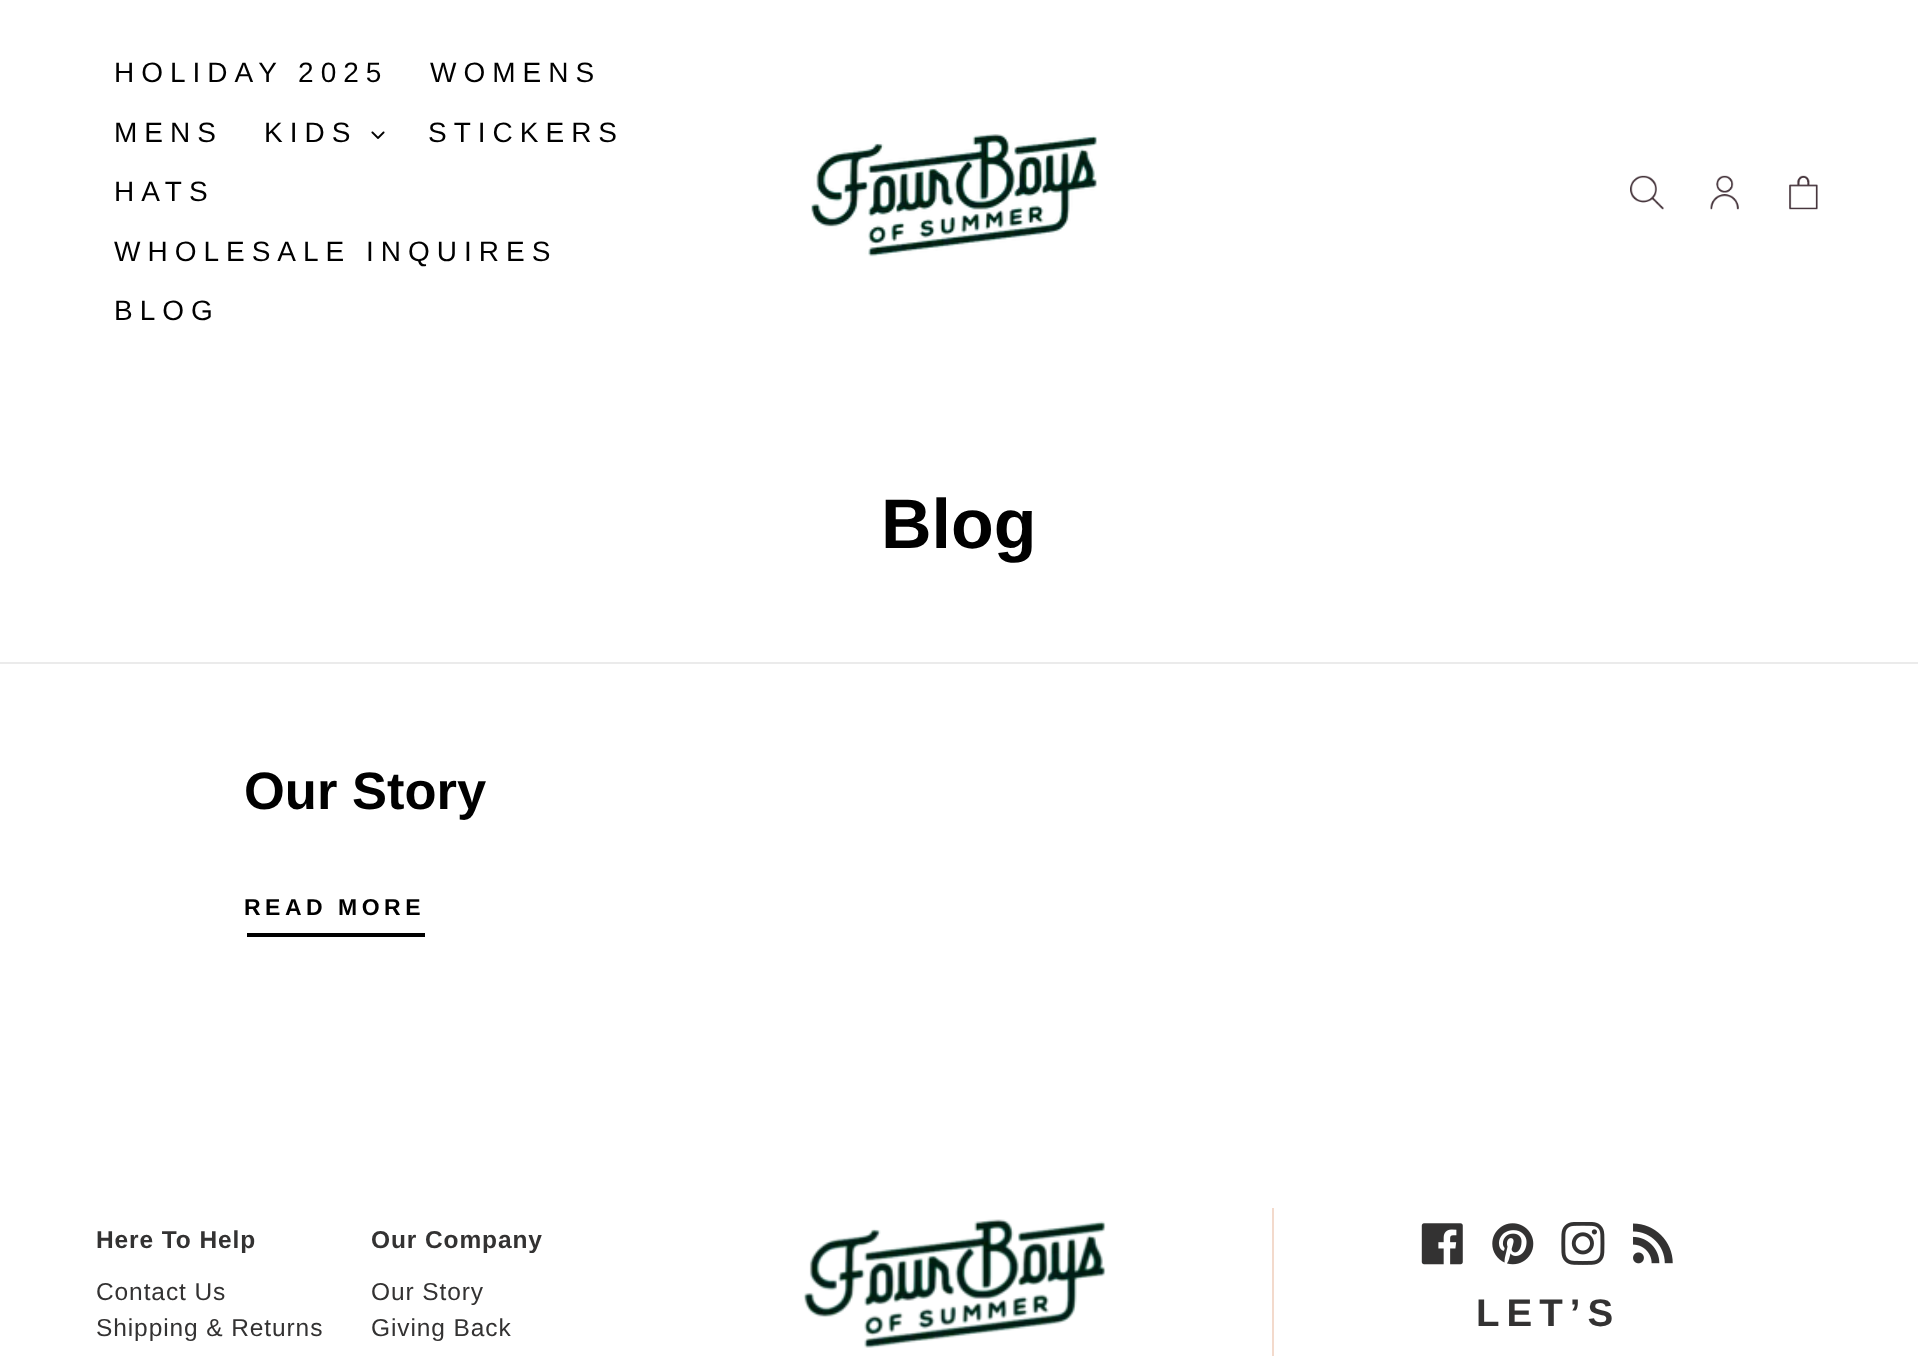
<svg xmlns="http://www.w3.org/2000/svg" width="1918" height="1356" viewBox="0 0 1918 1356">
  <rect width="100%" height="100%" fill="#fff"/>
  <image x="371" y="131" width="14" height="8" href="img/1.png"/>
  <image x="811" y="134" width="286" height="123" href="img/2.png"/>
  <image x="1630" y="175" width="34" height="35" href="img/3.png"/>
  <image x="1710" y="175" width="29" height="35" href="img/4.png"/>
  <image x="1789" y="175" width="29" height="35" href="img/5.png"/>
  <path d="M0 662h1918v2H0z" fill="#ebebeb"/>
  <path d="M247 933h178v4H247z" fill="#000"/>
  <image x="803" y="1219" width="303" height="129" href="img/6.png"/>
  <path d="M1272 1208h2v148H1272z" fill="#f3dacc"/>
  <image x="1421" y="1223" width="42" height="42" href="img/7.png"/>
  <image x="1492" y="1223" width="42" height="42" href="img/8.png"/>
  <image x="1561" y="1222" width="44" height="43" href="img/9.png"/>
  <image x="1633" y="1223" width="40" height="41" href="img/10.png"/>
  <g font-family="Liberation Sans" font-size="28" letter-spacing="7" fill="#000">
    <text x="114" y="82">HOLIDAY 2025</text>
    <text x="430" y="82">WOMENS</text>
    <text x="114" y="142">MENS</text>
    <text x="264" y="142">KIDS</text>
    <text x="428" y="142">STICKERS</text>
    <text x="114" y="201">HATS</text>
    <text x="114" y="261">WHOLESALE INQUIRES</text>
    <text x="114" y="320">BLOG</text>
  </g>
  <text x="881" y="548" font-family="Liberation Sans" font-size="70" font-weight="bold" fill="#000">Blog</text>
  <text x="244" y="809" font-family="Liberation Sans" font-size="52.5" font-weight="bold" fill="#000">Our Story</text>
  <text x="244" y="915" font-family="Liberation Sans" font-size="23" font-weight="bold" letter-spacing="4.5" fill="#000">READ MORE</text>
  <text x="96" y="1248" font-family="Liberation Sans" font-size="24.5" font-weight="bold" letter-spacing="0.9" fill="#333232">Here To Help</text>
  <g font-family="Liberation Sans" font-size="24.5" letter-spacing="0.9" fill="#333232">
    <text x="96" y="1300">Contact Us</text>
    <text x="96" y="1336">Shipping &amp; Returns</text>
  </g>
  <text x="371" y="1248" font-family="Liberation Sans" font-size="24.5" font-weight="bold" letter-spacing="0.9" fill="#333232">Our Company</text>
  <g font-family="Liberation Sans" font-size="24.5" letter-spacing="0.9" fill="#333232">
    <text x="371" y="1300">Our Story</text>
    <text x="371" y="1336">Giving Back</text>
  </g>
  <text x="1476" y="1326" font-family="Liberation Sans" font-size="38.5" font-weight="bold" letter-spacing="7" fill="#333232">LET’S</text>
</svg>
